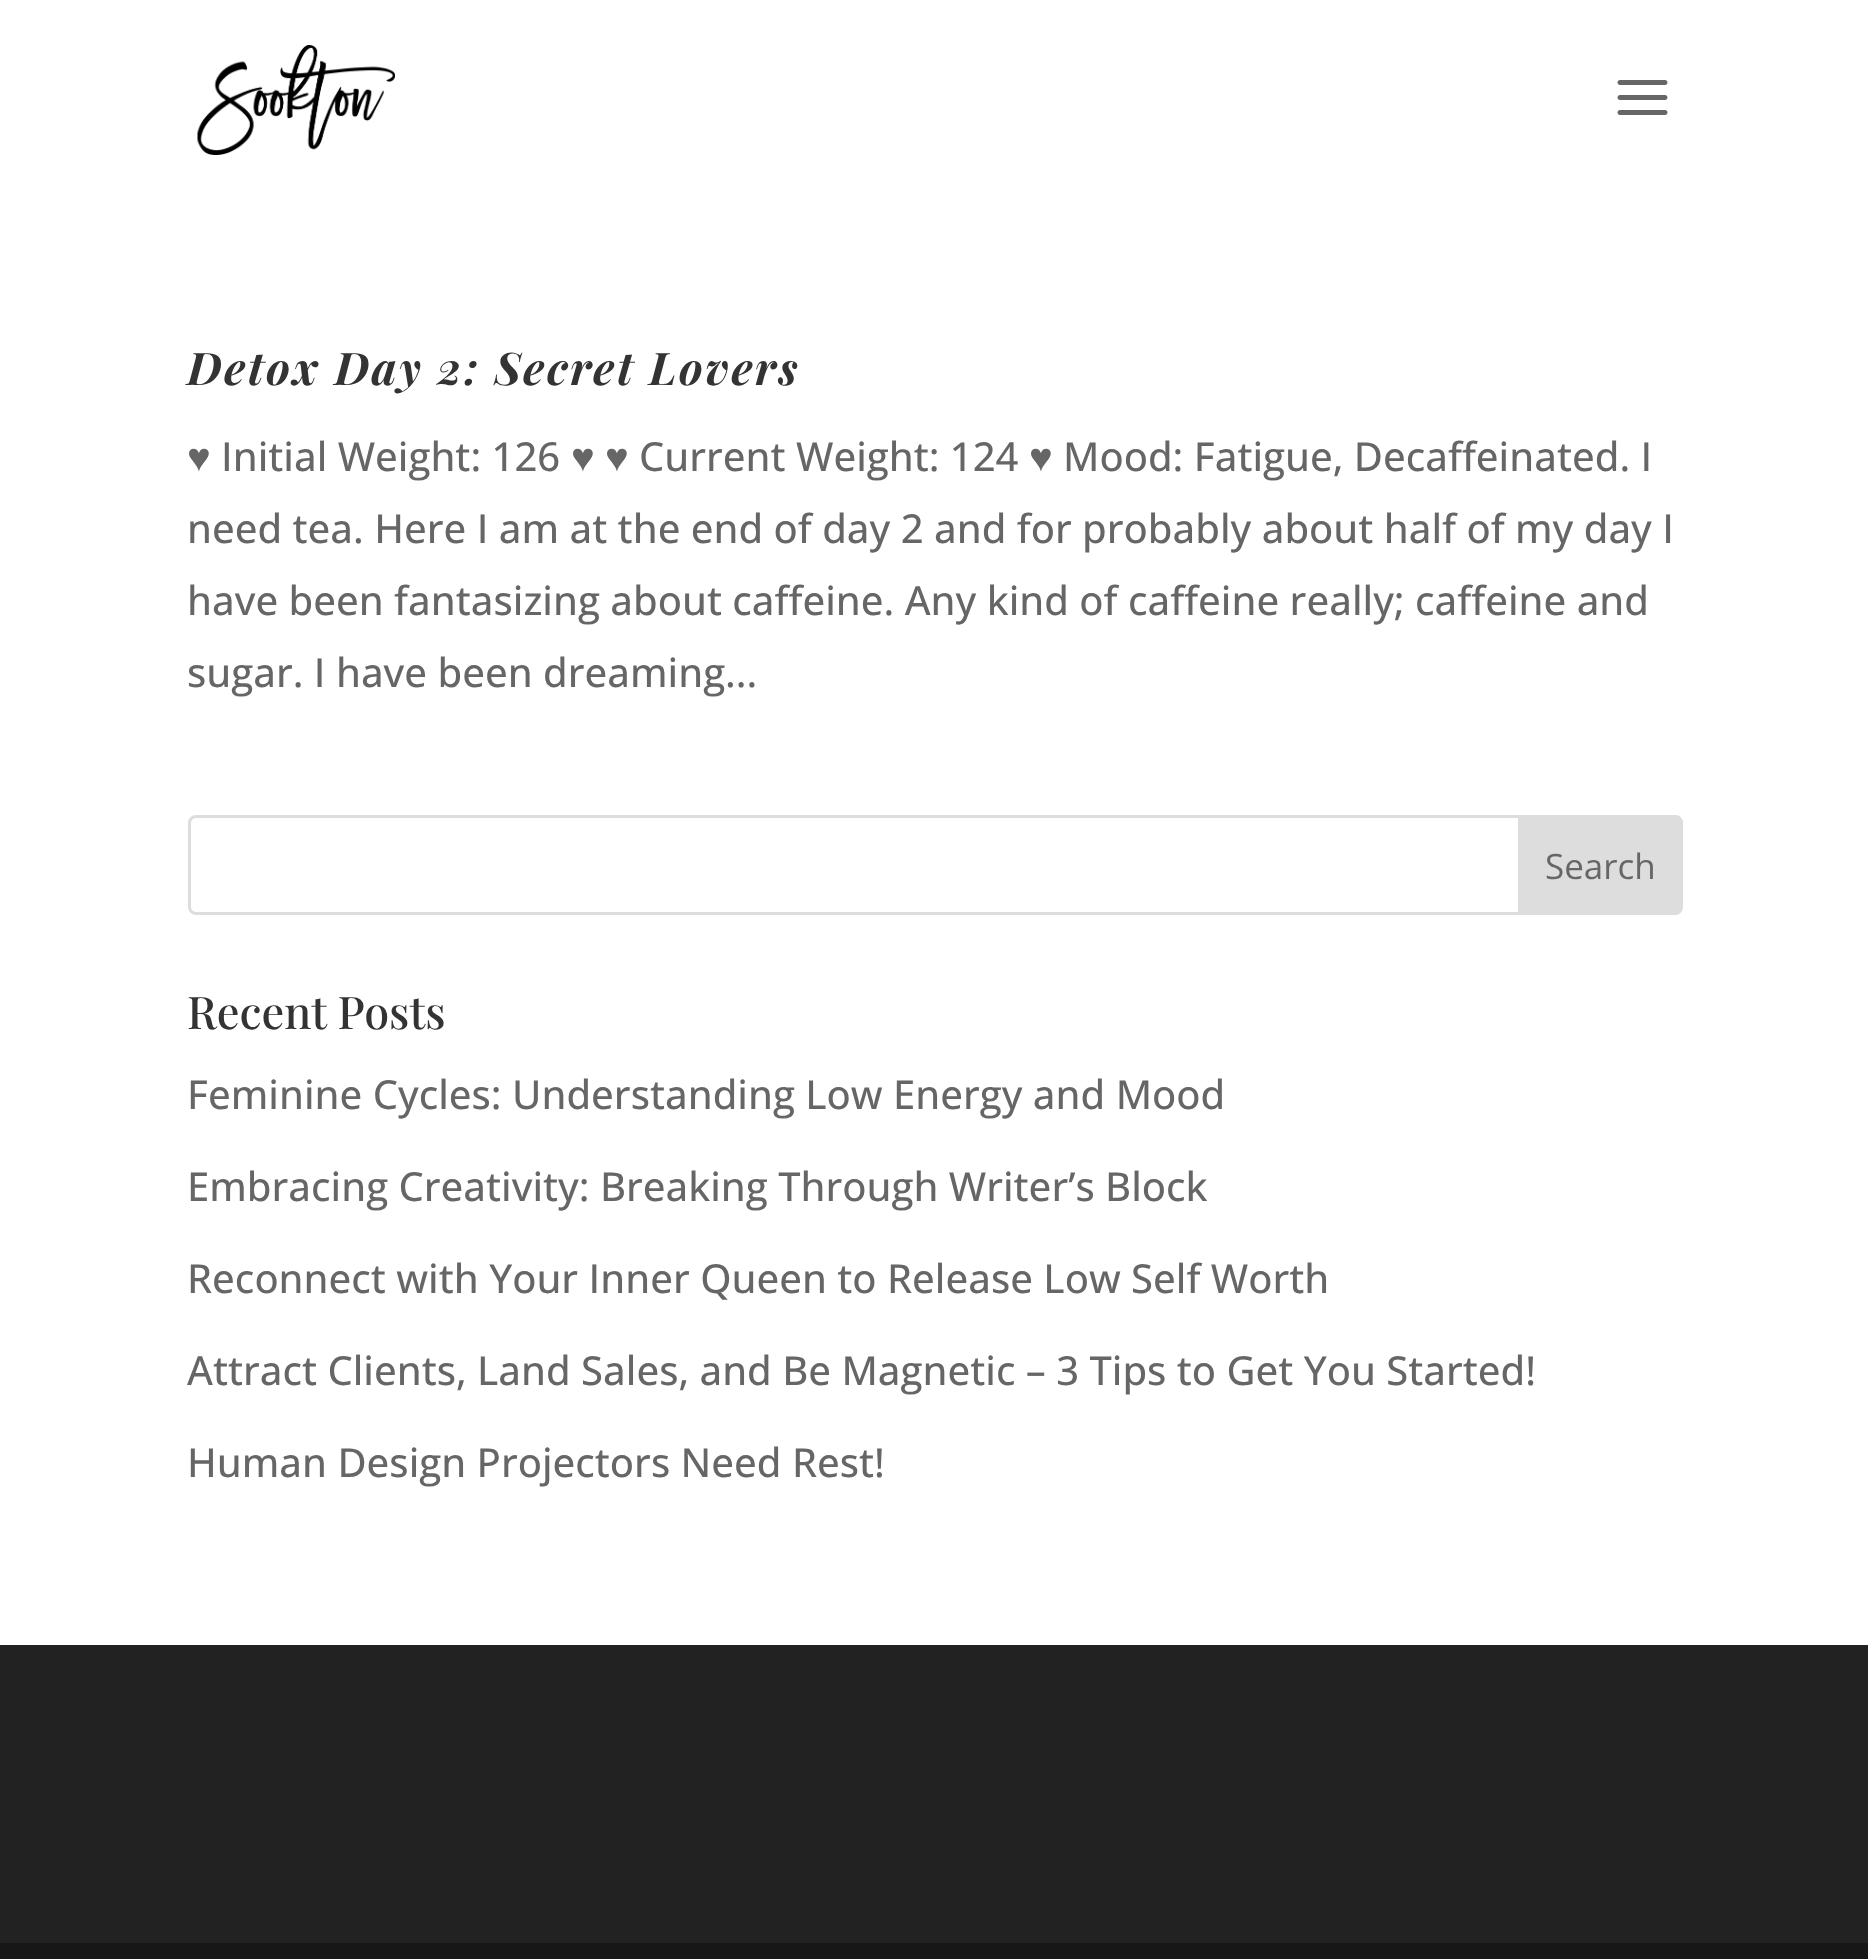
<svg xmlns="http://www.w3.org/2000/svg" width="1868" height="1959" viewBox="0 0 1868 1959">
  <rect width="100%" height="100%" fill="#fff"/>
  <image x="197" y="45" width="198" height="110" href="img/1.png"/>
  <image x="1617" y="80" width="51" height="35" href="img/2.png"/>
  <rect x="189.5" y="816.5" width="1492" height="97" rx="6.5" fill="none" stroke="#ddd" stroke-width="3"/>
  <path d="M1519.5 816.5H1675C1678.5 816.5 1681.5 819.5 1681.5 823V907C1681.5 910.5 1678.5 913.5 1675 913.5H1519.5Z" fill="#ddd" stroke="#ddd" stroke-width="3"/>
  <path d="M0 1645h1868v298H0z" fill="#222"/>
  <path d="M0 1943h1868v16H0z" fill="#171717"/>
  <text x="187" y="385" font-family="Playfair Display" font-size="45" font-weight="bold" font-style="italic" letter-spacing="2.5" fill="#333">Detox Day 2: Secret Lovers</text>
  <text x="187" y="471" font-family="Liberation Sans" font-size="40" fill="#666">♥</text>
  <text x="221" y="471" font-family="Open Sans" font-size="40" font-weight="500" fill="#666">Initial Weight: 126</text>
  <g font-family="Liberation Sans" font-size="40" fill="#666">
    <text x="571" y="471">♥</text>
    <text x="605" y="471">♥</text>
  </g>
  <text x="639" y="471" font-family="Open Sans" font-size="40" font-weight="500" fill="#666">Current Weight: 124</text>
  <text x="1029" y="471" font-family="Liberation Sans" font-size="40" fill="#666">♥</text>
  <g font-family="Open Sans" font-size="40" font-weight="500" fill="#666">
    <text x="1063" y="471">Mood: Fatigue, Decaffeinated. I</text>
    <text x="187" y="543">need tea. Here I am at the end of day 2 and for probably about half of my day I</text>
    <text x="187" y="615">have been fantasizing about caffeine. Any kind of caffeine really; caffeine and</text>
    <text x="187" y="687">sugar. I have been dreaming...</text>
  </g>
  <text x="1545" y="879" font-family="Open Sans" font-size="35" fill="#666">Search</text>
  <text x="187" y="1029" font-family="Playfair Display" font-size="45" font-weight="500" fill="#333">Recent Posts</text>
  <g font-family="Open Sans" font-size="40" font-weight="500" fill="#666">
    <text x="187" y="1109">Feminine Cycles: Understanding Low Energy and Mood</text>
    <text x="187" y="1201">Embracing Creativity: Breaking Through Writer’s Block</text>
    <text x="187" y="1293">Reconnect with Your Inner Queen to Release Low Self Worth</text>
    <text x="187" y="1385">Attract Clients, Land Sales, and Be Magnetic – 3 Tips to Get You Started!</text>
    <text x="187" y="1477">Human Design Projectors Need Rest!</text>
  </g>
</svg>
